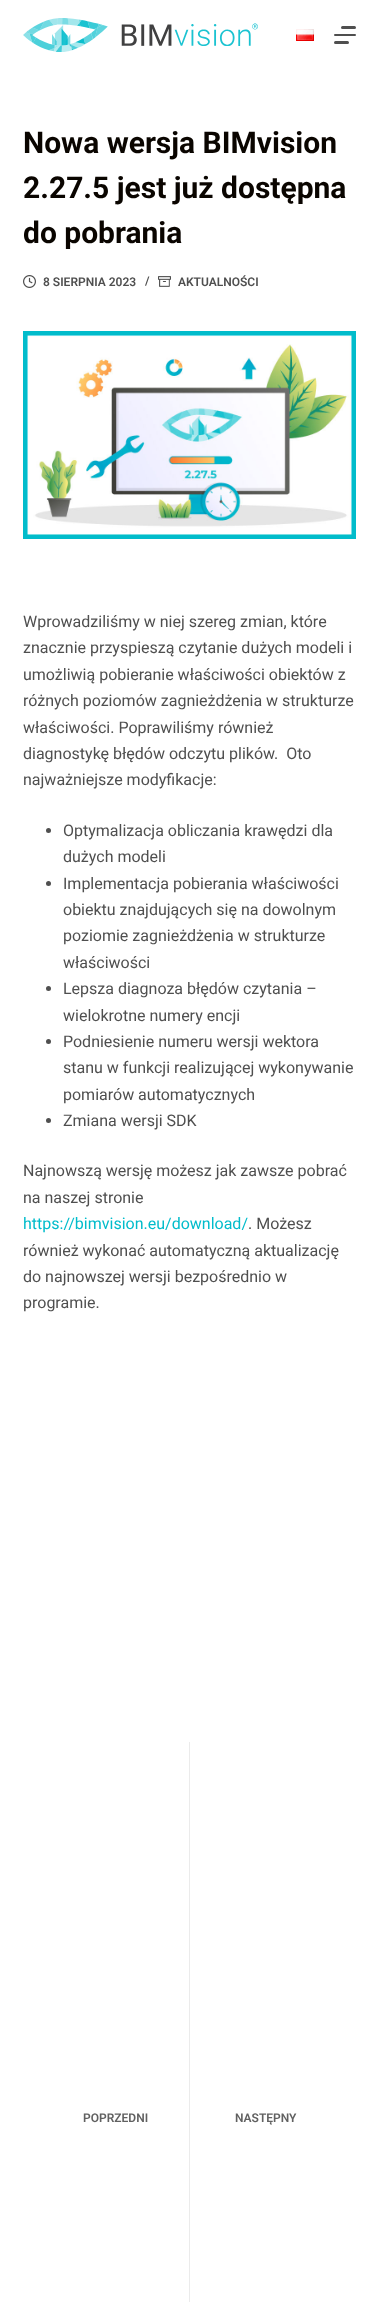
<svg xmlns="http://www.w3.org/2000/svg" width="379" height="2302" viewBox="0 0 379 2302">
  <rect width="100%" height="100%" fill="#fff"/>
  <image x="23" y="18" width="235" height="34" href="img/1.png"/>
  <image x="296" y="29" width="18" height="12" href="img/2.png"/>
  <rect x="341" y="26" width="15" height="3" rx="1.5" fill="#4f4f4f"/>
  <rect x="334" y="34" width="22" height="2" rx="1" fill="#4f4f4f"/>
  <rect x="334" y="41" width="15" height="3" rx="1.5" fill="#4f4f4f"/>
  <image x="23" y="275" width="13" height="13" href="img/3.png"/>
  <image x="158" y="276" width="13" height="11" href="img/4.png"/>
  <image x="23" y="331" width="333" height="208" href="img/5.png"/>
  <circle cx="48.5" cy="830.5" r="2.5" fill="#4f4f4f"/>
  <circle cx="48.5" cy="883.5" r="2.5" fill="#4f4f4f"/>
  <circle cx="48.5" cy="988.5" r="2.5" fill="#4f4f4f"/>
  <circle cx="48.5" cy="1041.5" r="2.5" fill="#4f4f4f"/>
  <circle cx="48.5" cy="1120.5" r="2.5" fill="#4f4f4f"/>
  <path d="M189 1742h1v560H189z" fill="#ebebeb"/>
  <g font-family="Roboto" font-size="30" font-weight="bold" fill="#0a0500">
    <text x="23" y="153">Nowa wersja BIMvision</text>
    <text x="23" y="198">2.27.5 jest już dostępna</text>
    <text x="23" y="243">do pobrania</text>
  </g>
  <g font-family="Roboto" font-size="12" font-weight="600" fill="#4f4f4f">
    <text x="43" y="286">8 SIERPNIA 2023</text>
    <text x="145" y="285">/</text>
    <text x="178" y="286">AKTUALNOŚCI</text>
  </g>
  <g font-family="Roboto" font-size="16" fill="#4f4f4f">
    <text x="23" y="627">Wprowadziliśmy w niej szereg zmian, które</text>
    <text x="23" y="653">znacznie przyspieszą czytanie dużych modeli i</text>
    <text x="23" y="680">umożliwią pobieranie właściwości obiektów z</text>
    <text x="23" y="706">różnych poziomów zagnieżdżenia w strukturze</text>
    <text x="23" y="733">właściwości. Poprawiliśmy również</text>
    <text x="23" y="759" xml:space="preserve">diagnostykę błędów odczytu plików.  Oto</text>
    <text x="23" y="785">najważniejsze modyfikacje:</text>
    <text x="63" y="836">Optymalizacja obliczania krawędzi dla</text>
    <text x="63" y="862">dużych modeli</text>
    <text x="63" y="889">Implementacja pobierania właściwości</text>
    <text x="63" y="915">obiektu znajdujących się na dowolnym</text>
    <text x="63" y="941">poziomie zagnieżdżenia w strukturze</text>
    <text x="63" y="968">właściwości</text>
    <text x="63" y="994">Lepsza diagnoza błędów czytania –</text>
    <text x="63" y="1021">wielokrotne numery encji</text>
    <text x="63" y="1047">Podniesienie numeru wersji wektora</text>
    <text x="63" y="1073">stanu w funkcji realizującej wykonywanie</text>
    <text x="63" y="1100">pomiarów automatycznych</text>
    <text x="63" y="1126">Zmiana wersji SDK</text>
    <text x="23" y="1176">Najnowszą wersję możesz jak zawsze pobrać</text>
    <text x="23" y="1203">na naszej stronie</text>
  </g>
  <text x="23" y="1229" font-family="Roboto" font-size="16" fill="#00bccb">https://bimvision.eu/download/</text>
  <g font-family="Roboto" font-size="16" fill="#4f4f4f">
    <text x="248" y="1229">. Możesz</text>
    <text x="23" y="1256">również wykonać automatyczną aktualizację</text>
    <text x="23" y="1282">do najnowszej wersji bezpośrednio w</text>
    <text x="23" y="1308">programie.</text>
  </g>
  <g font-family="Roboto" font-size="12" font-weight="600" fill="#616161">
    <text x="83" y="2122">POPRZEDNI</text>
    <text x="235" y="2122">NASTĘPNY</text>
  </g>
</svg>
